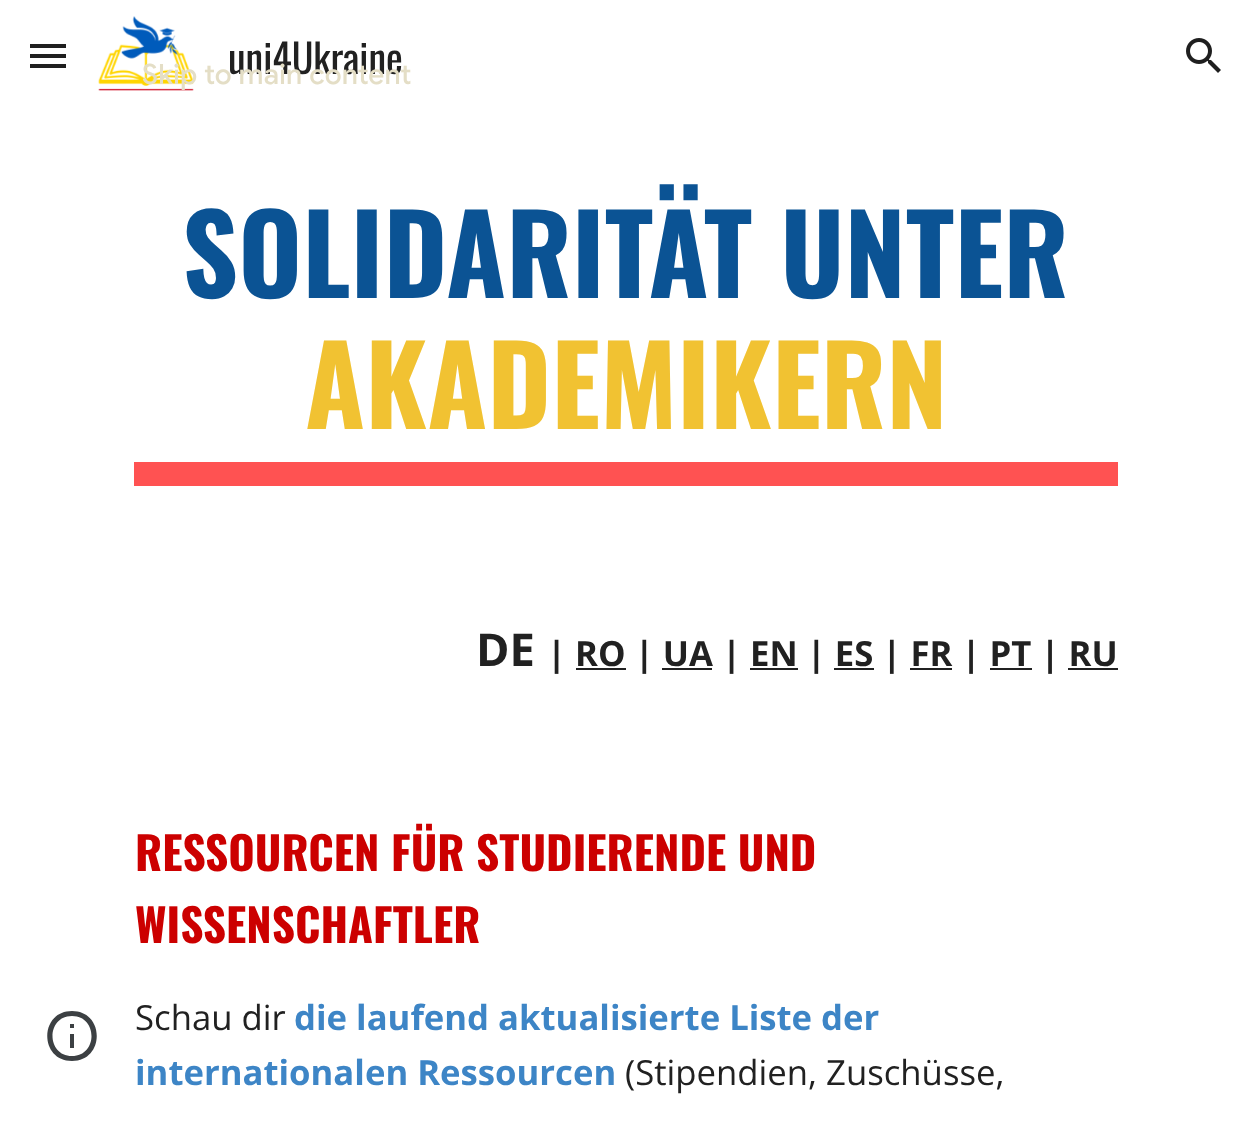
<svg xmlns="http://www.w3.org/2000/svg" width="1251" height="1129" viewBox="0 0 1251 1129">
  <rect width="100%" height="100%" fill="#fff"/>
  <path d="M30 44h36v4H30z" fill="#1f1f1f"/>
  <path d="M30 54h36v4H30z" fill="#1f1f1f"/>
  <path d="M30 64h36v4H30z" fill="#1f1f1f"/>
  <image x="98" y="16" width="96" height="75" href="img/1.png"/>
  <image x="1186" y="38" width="35" height="35" href="img/2.png"/>
  <path d="M70 1048H74V1034H70ZM72 1011C39 1011 39 1061 72 1061C105 1061 105 1011 72 1011ZM72 1056C46 1056 46 1016 72 1016C98 1016 98 1056 72 1056ZM70 1028H74V1024H70Z" fill="#3c4043"/>
  <path d="M134 462h984v24H134z" fill="#ff5252"/>
  <path d="M576 668h50v2H576z" fill="#212121"/>
  <path d="M662 668h50v2H662z" fill="#212121"/>
  <path d="M750 668h48v2H750z" fill="#212121"/>
  <path d="M834 668h40v2H834z" fill="#212121"/>
  <path d="M910 668h42v2H910z" fill="#212121"/>
  <path d="M990 668h42v2H990z" fill="#212121"/>
  <path d="M1068 668h50v2H1068z" fill="#212121"/>
  <text x="228" y="74" font-family="Oswald" font-size="40" fill="#212121">uni4Ukraine</text>
  <text x="182" y="298" font-family="Oswald" font-size="109.25" font-weight="bold" fill="#0b5394">SOLIDARITÄT UNTER</text>
  <text x="305" y="429" font-family="Oswald" font-size="109.25" font-weight="bold" fill="#f1c232">AKADEMIKERN</text>
  <text x="476" y="666" font-family="Open Sans" font-size="45.3" font-weight="bold" fill="#212121">DE</text>
  <text x="547" y="666" font-family="Open Sans" font-size="34.7" font-weight="bold" fill="#212121">| RO | UA | EN | ES | FR | PT | RU</text>
  <g font-family="Oswald" font-size="45.3" font-weight="bold" fill="#c00">
    <text x="135" y="871">RESSOURCEN FÜR STUDIERENDE UND</text>
    <text x="135" y="943">WISSENSCHAFTLER</text>
  </g>
  <text x="135" y="1030" font-family="Open Sans" font-size="34.7" fill="#212121">Schau dir</text>
  <g font-family="Open Sans" font-size="34.7" font-weight="bold" fill="#3d85c6">
    <text x="294" y="1030">die laufend aktualisierte Liste der</text>
    <text x="135" y="1085">internationalen Ressourcen</text>
  </g>
  <text x="625" y="1085" font-family="Open Sans" font-size="34.7" fill="#212121">(Stipendien, Zuschüsse,</text>
  <text x="142" y="84" font-family="Google Sans" font-size="28" font-weight="500" letter-spacing="0.25" fill="#e4dec6">Skip to main content</text>
</svg>
